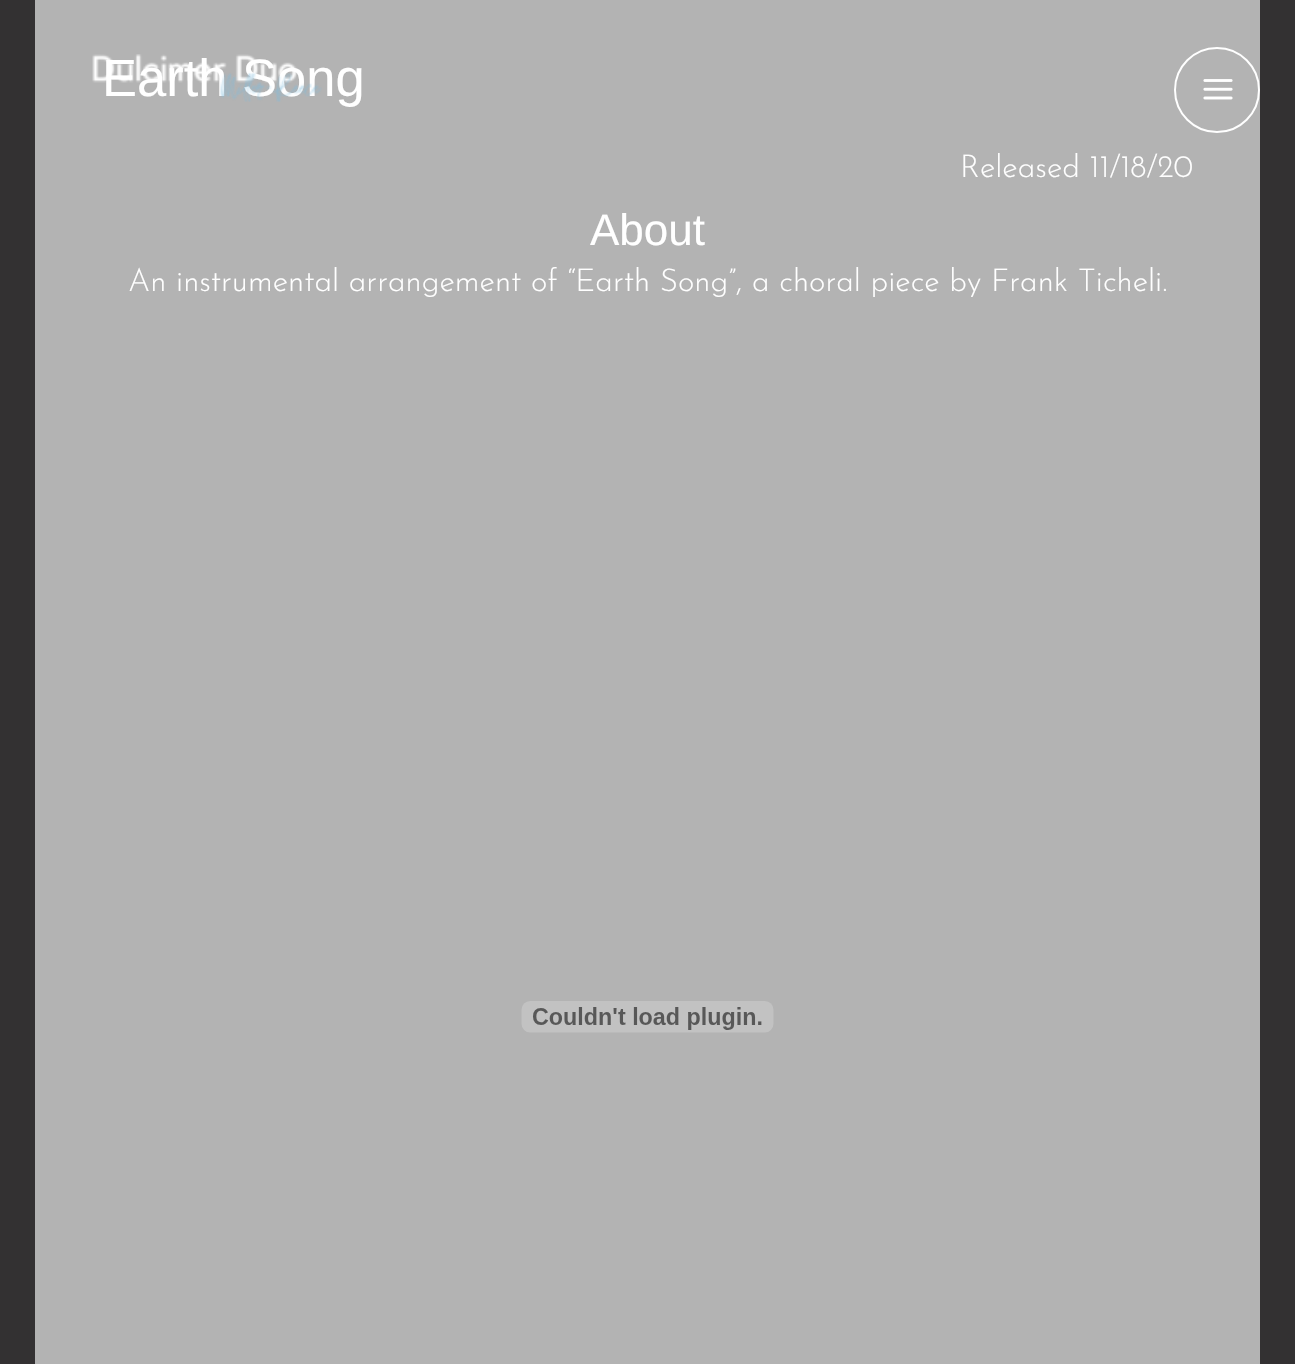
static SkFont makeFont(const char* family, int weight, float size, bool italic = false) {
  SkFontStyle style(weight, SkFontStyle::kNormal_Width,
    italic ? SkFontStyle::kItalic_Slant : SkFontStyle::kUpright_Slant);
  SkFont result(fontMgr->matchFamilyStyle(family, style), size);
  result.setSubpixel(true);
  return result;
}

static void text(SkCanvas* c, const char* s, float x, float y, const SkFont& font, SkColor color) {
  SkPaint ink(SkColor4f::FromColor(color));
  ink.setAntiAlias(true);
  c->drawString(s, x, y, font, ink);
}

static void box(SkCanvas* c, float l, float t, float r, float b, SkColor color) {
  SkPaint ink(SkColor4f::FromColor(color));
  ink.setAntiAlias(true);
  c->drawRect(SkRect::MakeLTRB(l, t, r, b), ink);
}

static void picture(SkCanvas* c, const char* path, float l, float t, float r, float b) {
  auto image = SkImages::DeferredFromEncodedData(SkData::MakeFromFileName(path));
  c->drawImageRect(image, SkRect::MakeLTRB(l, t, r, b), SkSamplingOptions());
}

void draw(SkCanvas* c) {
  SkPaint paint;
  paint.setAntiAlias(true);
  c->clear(0xff333132);
  box(c, 35, 0, 1260, 1364, 0xffb3b3b3);
  SkFont face1 = makeFont("Liberation Sans", 400, 52.5f);
  text(c, "Earth Song", 102, 96, face1, 0xffffffff);
  picture(c, "img_01.png", 92, 54, 322, 102);
  paint.setStyle(SkPaint::kStroke_Style);
  paint.setStrokeWidth(2);
  paint.setColor(0xffffffff);
  c->drawCircle(1217, 90, 42, paint);
  picture(c, "img_02.png", 1203, 79, 1233, 100);
  SkFont face2 = makeFont("Josefin Sans", 100, 31.5f);
  text(c, "Released 11/18/20", 960, 177, face2, 0xffffffff);
  SkFont face3 = makeFont("Liberation Sans", 400, 44);
  text(c, "About", 590, 245, face3, 0xffffffff);
  text(c, "An instrumental arrangement of “Earth Song”, a choral piece by Frank Ticheli.", 128, 291, face2, 0xffffffff);
  picture(c, "img_03.png", 521, 1001, 774, 1033);
}
